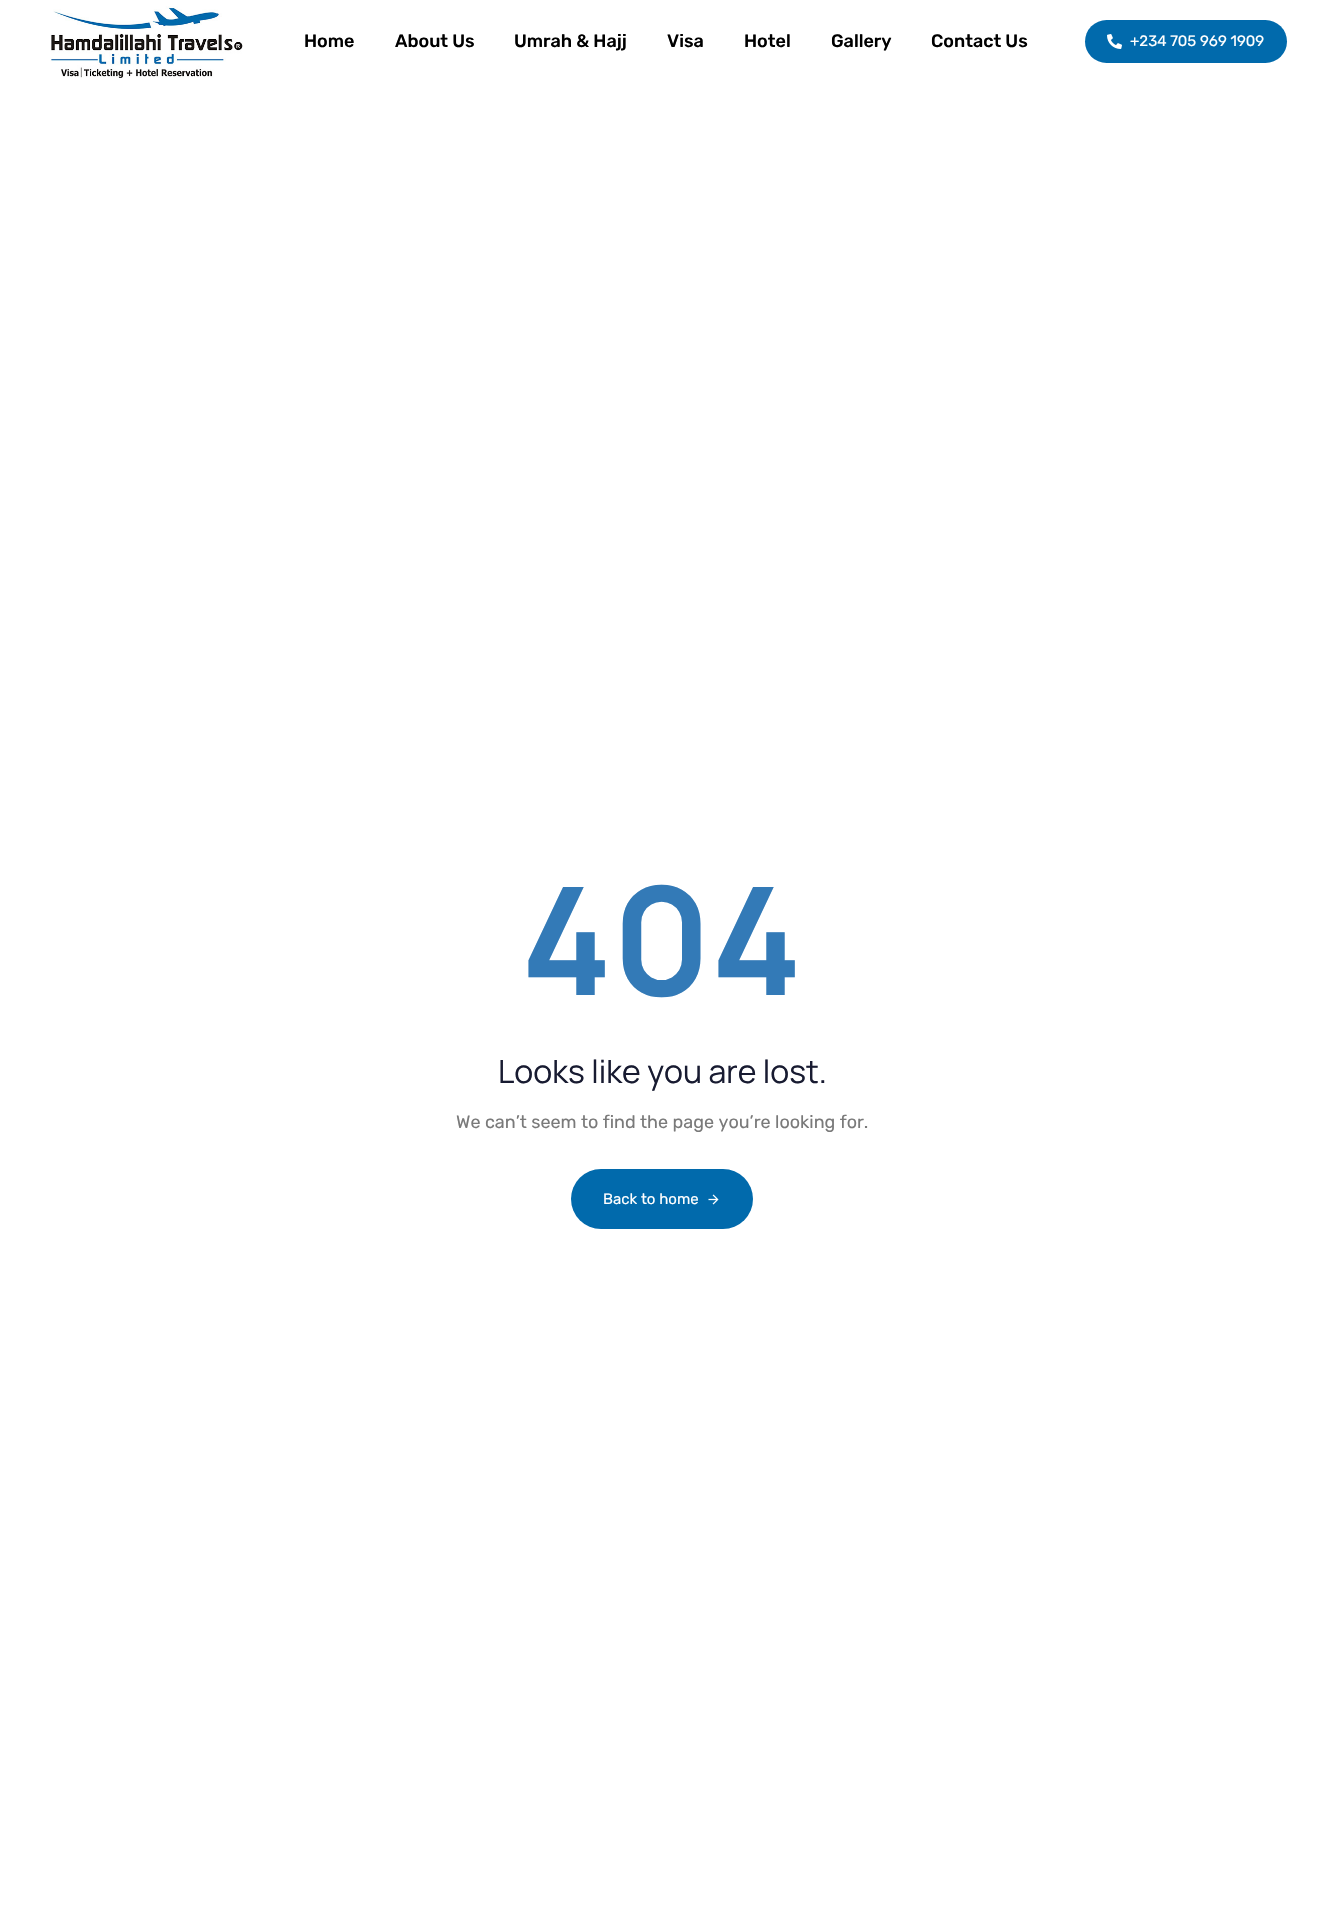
static SkFont makeFont(const char* family, int weight, float size, bool italic = false) {
  SkFontStyle style(weight, SkFontStyle::kNormal_Width,
    italic ? SkFontStyle::kItalic_Slant : SkFontStyle::kUpright_Slant);
  SkFont result(fontMgr->matchFamilyStyle(family, style), size);
  result.setSubpixel(true);
  return result;
}

static void text(SkCanvas* c, const char* s, float x, float y, const SkFont& font, SkColor color) {
  SkPaint ink(SkColor4f::FromColor(color));
  ink.setAntiAlias(true);
  c->drawString(s, x, y, font, ink);
}

static void roundBox(SkCanvas* c, float l, float t, float r, float b, float radius, SkColor color) {
  SkPaint ink(SkColor4f::FromColor(color));
  ink.setAntiAlias(true);
  c->drawRoundRect(SkRect::MakeLTRB(l, t, r, b), radius, radius, ink);
}

static void picture(SkCanvas* c, const char* path, float l, float t, float r, float b) {
  auto image = SkImages::DeferredFromEncodedData(SkData::MakeFromFileName(path));
  c->drawImageRect(image, SkRect::MakeLTRB(l, t, r, b), SkSamplingOptions());
}

void draw(SkCanvas* c) {
  SkPaint paint;
  paint.setAntiAlias(true);
  c->clear(0xffffffff);
  picture(c, "img_01.png", 50, 6, 243, 78);
  SkFont face1 = makeFont("Rubik", 500, 18);
  text(c, "Home", 304, 47, face1, 0xff000000);
  text(c, "About Us", 395, 47, face1, 0xff000000);
  text(c, "Umrah & Hajj", 514, 47, face1, 0xff000000);
  text(c, "Visa", 667, 47, face1, 0xff000000);
  text(c, "Hotel", 744, 47, face1, 0xff000000);
  text(c, "Gallery", 831, 47, face1, 0xff000000);
  text(c, "Contact Us", 931, 47, face1, 0xff000000);
  roundBox(c, 1085, 20, 1287, 63, 21.5f, 0xff016aac);
  picture(c, "img_02.png", 1107, 34, 1122, 49);
  SkFont face2 = makeFont("Rubik", 400, 15);
  text(c, "+234 705 969 1909", 1130, 46, face2, 0xffffffff);
  SkFont face3 = makeFont("Manrope", 700, 150);
  text(c, "404", 521, 995, face3, 0xff337ab7);
  SkFont face4 = makeFont("Manrope", 400, 32);
  text(c, "Looks like you are lost.", 498, 1083, face4, 0xff181b31);
  SkFont face5 = makeFont("Rubik", 400, 18);
  text(c, "We can’t seem to find the page you’re looking for.", 456, 1128, face5, 0xff7a7a7a);
  roundBox(c, 571, 1169, 753, 1229, 30, 0xff016aac);
  text(c, "Back to home", 603, 1204, face2, 0xffffffff);
  picture(c, "img_03.png", 708, 1194, 719, 1205);
}
